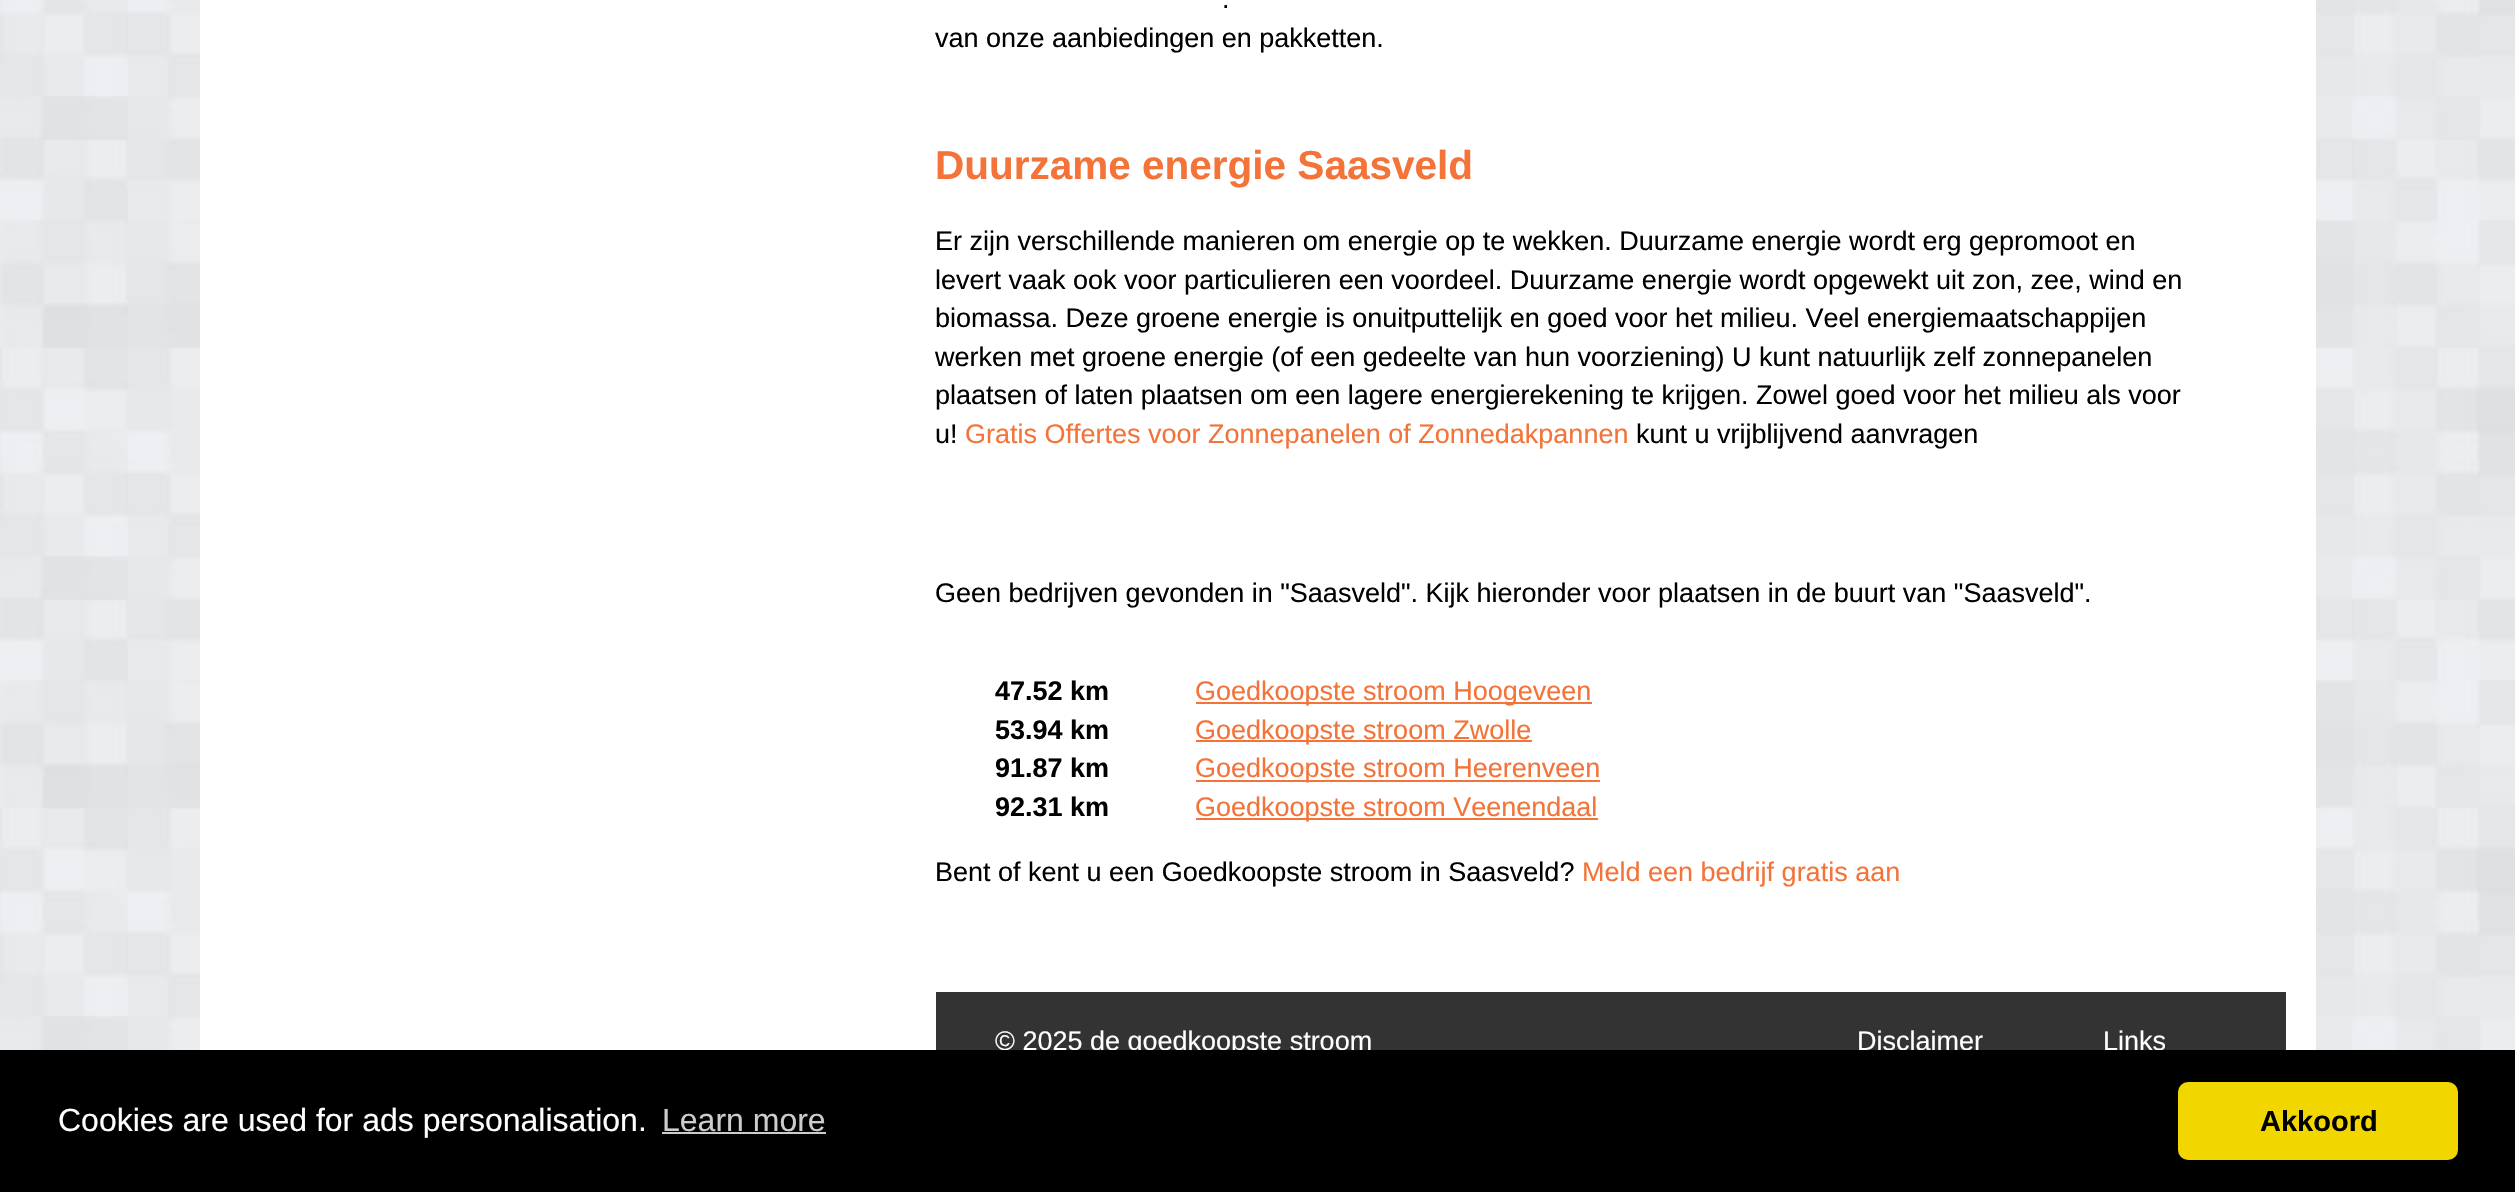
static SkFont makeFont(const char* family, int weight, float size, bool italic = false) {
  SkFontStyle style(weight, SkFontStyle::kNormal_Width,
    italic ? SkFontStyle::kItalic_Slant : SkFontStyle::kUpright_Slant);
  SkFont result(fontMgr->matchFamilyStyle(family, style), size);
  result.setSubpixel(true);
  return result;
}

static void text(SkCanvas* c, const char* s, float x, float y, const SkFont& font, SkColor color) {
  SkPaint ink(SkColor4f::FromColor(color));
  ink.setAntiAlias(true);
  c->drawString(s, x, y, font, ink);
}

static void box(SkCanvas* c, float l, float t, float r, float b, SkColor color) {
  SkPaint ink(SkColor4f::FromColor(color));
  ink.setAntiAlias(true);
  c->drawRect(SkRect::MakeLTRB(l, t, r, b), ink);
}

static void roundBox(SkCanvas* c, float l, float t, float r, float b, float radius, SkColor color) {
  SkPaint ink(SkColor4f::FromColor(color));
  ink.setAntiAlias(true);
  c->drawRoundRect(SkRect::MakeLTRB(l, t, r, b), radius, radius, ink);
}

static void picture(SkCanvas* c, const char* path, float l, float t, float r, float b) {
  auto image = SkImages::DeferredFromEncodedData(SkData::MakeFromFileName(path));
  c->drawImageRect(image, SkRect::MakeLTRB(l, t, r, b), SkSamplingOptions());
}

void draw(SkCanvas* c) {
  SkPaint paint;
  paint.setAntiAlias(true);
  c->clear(0xffffffff);
  picture(c, "img_01.png", 0, 0, 2515, 1050);
  box(c, 200, 0, 2316, 1050, 0xffffffff);
  SkFont face1 = makeFont("Liberation Sans", 400, 27);
  text(c, ".", 1222, 8, face1, 0xff000000);
  text(c, "van onze aanbiedingen en pakketten.", 935, 47, face1, 0xff000000);
  SkFont face2 = makeFont("Liberation Sans", 700, 40.5f);
  text(c, "Duurzame energie Saasveld", 935, 179, face2, 0xfff37338);
  text(c, "Er zijn verschillende manieren om energie op te wekken. Duurzame energie wordt erg gepromoot en", 935, 250, face1, 0xff000000);
  text(c, "levert vaak ook voor particulieren een voordeel. Duurzame energie wordt opgewekt uit zon, zee, wind en", 935, 289, face1, 0xff000000);
  text(c, "biomassa. Deze groene energie is onuitputtelijk en goed voor het milieu. Veel energiemaatschappijen", 935, 327, face1, 0xff000000);
  text(c, "werken met groene energie (of een gedeelte van hun voorziening) U kunt natuurlijk zelf zonnepanelen", 935, 366, face1, 0xff000000);
  text(c, "plaatsen of laten plaatsen om een lagere energierekening te krijgen. Zowel goed voor het milieu als voor", 935, 404, face1, 0xff000000);
  text(c, "u!", 935, 443, face1, 0xff000000);
  text(c, "Gratis Offertes voor Zonnepanelen of Zonnedakpannen", 965, 443, face1, 0xfff37338);
  text(c, "kunt u vrijblijvend aanvragen", 1636, 443, face1, 0xff000000);
  text(c, "Geen bedrijven gevonden in \"Saasveld\". Kijk hieronder voor plaatsen in de buurt van \"Saasveld\".", 935, 602, face1, 0xff000000);
  SkFont face3 = makeFont("Liberation Sans", 700, 27);
  text(c, "47.52 km", 995, 700, face3, 0xff000000);
  box(c, 1196, 702, 1592, 704, 0xfff37338);
  text(c, "Goedkoopste stroom Hoogeveen", 1195, 700, face1, 0xfff37338);
  text(c, "53.94 km", 995, 739, face3, 0xff000000);
  box(c, 1196, 740, 1532, 742, 0xfff37338);
  text(c, "Goedkoopste stroom Zwolle", 1195, 739, face1, 0xfff37338);
  text(c, "91.87 km", 995, 777, face3, 0xff000000);
  box(c, 1196, 780, 1600, 782, 0xfff37338);
  text(c, "Goedkoopste stroom Heerenveen", 1195, 777, face1, 0xfff37338);
  text(c, "92.31 km", 995, 816, face3, 0xff000000);
  box(c, 1196, 818, 1598, 820, 0xfff37338);
  text(c, "Goedkoopste stroom Veenendaal", 1195, 816, face1, 0xfff37338);
  text(c, "Bent of kent u een Goedkoopste stroom in Saasveld?", 935, 881, face1, 0xff000000);
  text(c, "Meld een bedrijf gratis aan", 1582, 881, face1, 0xfff37338);
  box(c, 936, 992, 2286, 1050, 0xff333333);
  text(c, "© 2025 de goedkoopste stroom", 995, 1050, face1, 0xffffffff);
  text(c, "Disclaimer", 1857, 1050, face1, 0xffffffff);
  text(c, "Links", 2103, 1050, face1, 0xffffffff);
  box(c, 0, 1050, 2515, 1192, 0xff000000);
  SkFont face4 = makeFont("Liberation Sans", 400, 32);
  text(c, "Cookies are used for ads personalisation.", 58, 1131, face4, 0xffffffff);
  text(c, "Learn more", 662, 1131, face4, 0xffcccccc);
  box(c, 662, 1132, 826, 1134, 0xffcccccc);
  roundBox(c, 2178, 1082, 2458, 1160, 10, 0xfff1d600);
  SkFont face5 = makeFont("Liberation Sans", 700, 29);
  text(c, "Akkoord", 2260, 1131, face5, 0xff000000);
}
